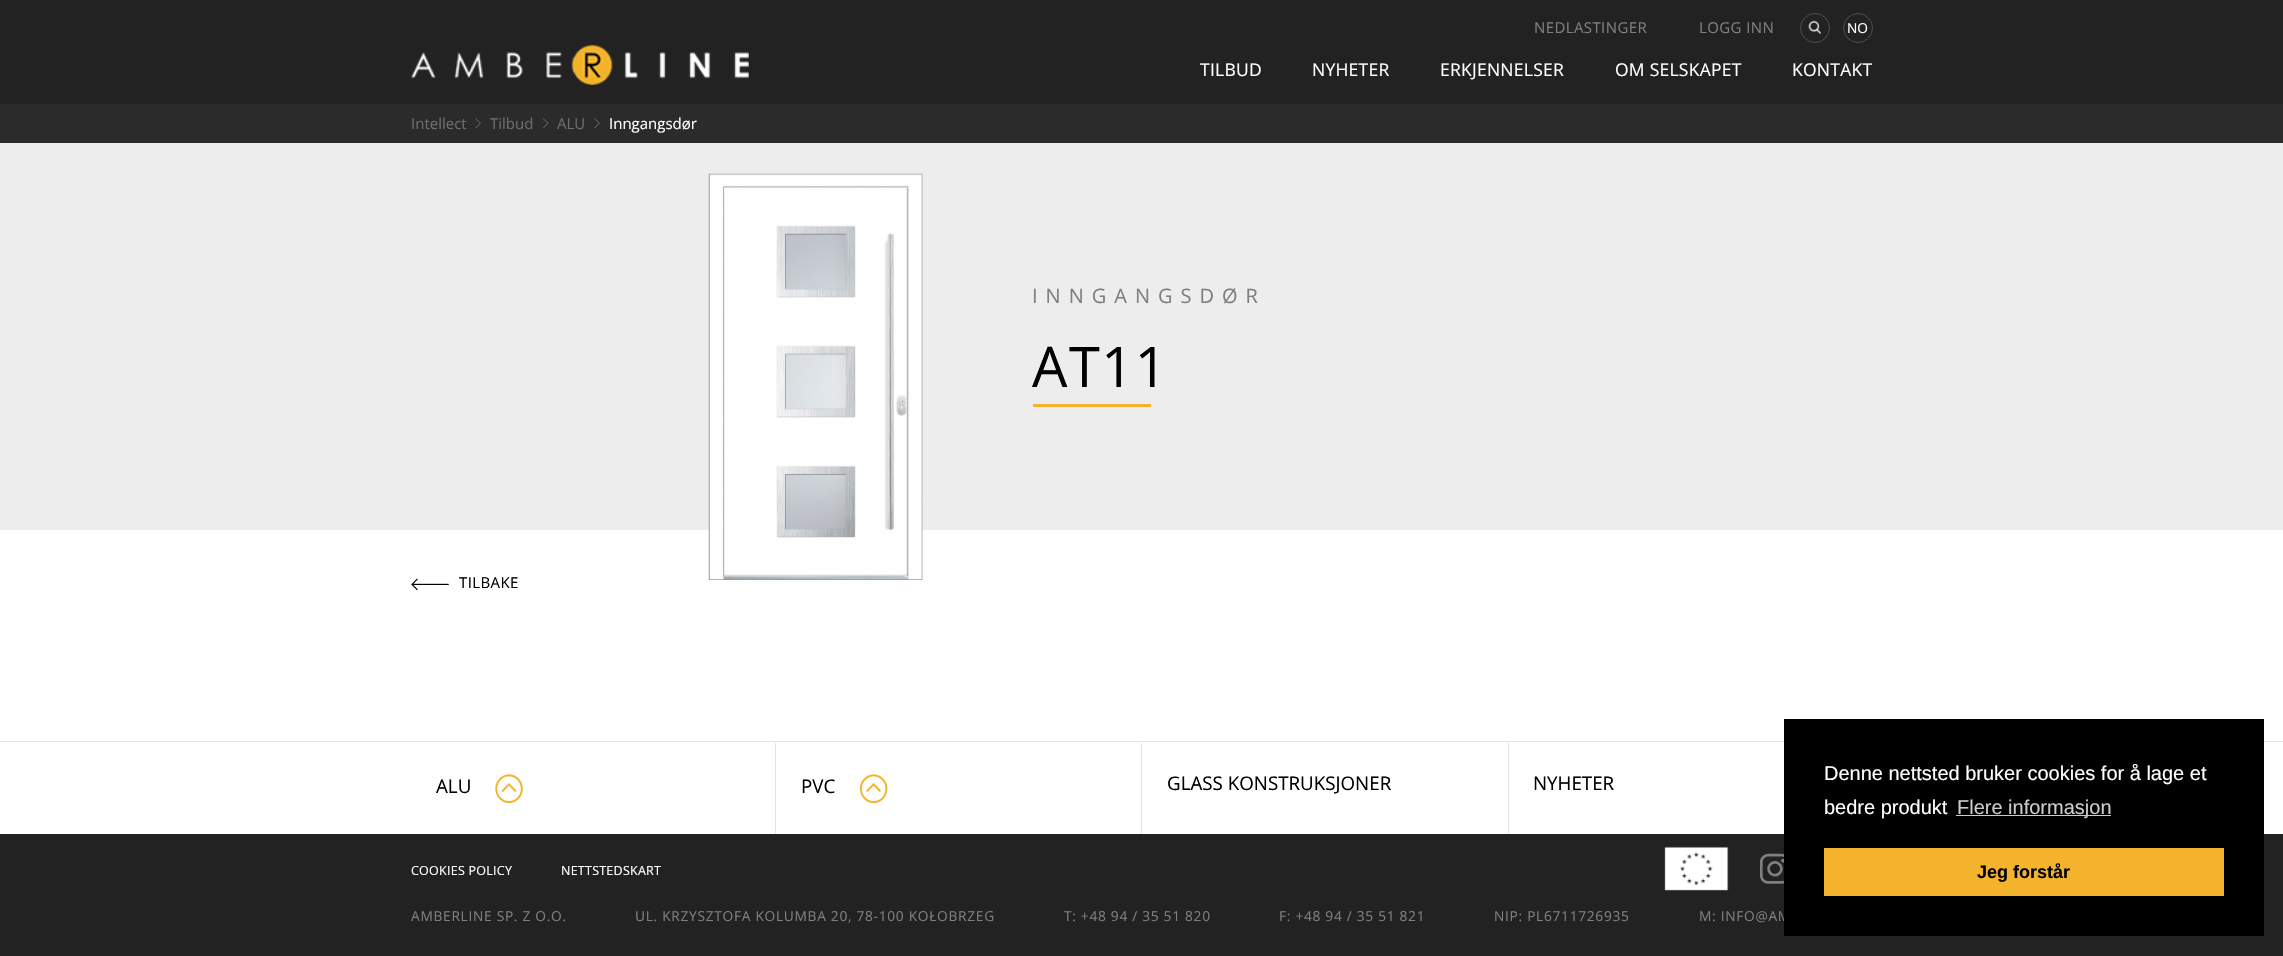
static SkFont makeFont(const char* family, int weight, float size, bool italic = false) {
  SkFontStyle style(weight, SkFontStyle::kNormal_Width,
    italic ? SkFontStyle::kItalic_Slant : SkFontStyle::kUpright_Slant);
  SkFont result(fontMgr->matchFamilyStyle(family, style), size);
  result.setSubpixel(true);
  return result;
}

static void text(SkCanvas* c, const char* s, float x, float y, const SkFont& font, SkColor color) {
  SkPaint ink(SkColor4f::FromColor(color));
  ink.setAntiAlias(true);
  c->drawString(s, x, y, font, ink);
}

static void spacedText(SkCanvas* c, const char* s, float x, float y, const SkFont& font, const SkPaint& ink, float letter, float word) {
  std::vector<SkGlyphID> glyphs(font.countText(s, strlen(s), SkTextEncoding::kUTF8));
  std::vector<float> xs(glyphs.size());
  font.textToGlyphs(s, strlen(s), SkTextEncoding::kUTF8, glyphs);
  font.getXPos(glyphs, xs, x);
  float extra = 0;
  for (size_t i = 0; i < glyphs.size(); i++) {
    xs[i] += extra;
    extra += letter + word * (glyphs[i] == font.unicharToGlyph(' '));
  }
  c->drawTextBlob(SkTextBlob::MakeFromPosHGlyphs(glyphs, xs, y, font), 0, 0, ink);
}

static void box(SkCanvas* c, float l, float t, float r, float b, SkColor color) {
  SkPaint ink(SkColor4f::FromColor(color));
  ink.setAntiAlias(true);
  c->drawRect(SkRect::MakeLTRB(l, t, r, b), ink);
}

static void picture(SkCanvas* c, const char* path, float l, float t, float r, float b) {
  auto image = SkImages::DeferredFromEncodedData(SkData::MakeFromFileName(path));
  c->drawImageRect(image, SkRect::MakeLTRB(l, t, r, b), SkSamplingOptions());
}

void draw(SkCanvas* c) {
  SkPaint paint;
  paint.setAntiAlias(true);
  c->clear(0xffffffff);
  box(c, 0, 0, 2283, 104, 0xff222222);
  picture(c, "img_01.png", 411, 44, 749, 85);
  SkFont face1 = makeFont("Open Sans", 400, 15);
  paint.setColor(0xff7f7f7f);
  spacedText(c, "NEDLASTINGER", 1534, 33, face1, paint, 0.4f, 0);
  spacedText(c, "LOGG INN", 1699, 33, face1, paint, 0.4f, 0);
  paint.setStyle(SkPaint::kStroke_Style);
  paint.setStrokeWidth(1);
  paint.setColor(0xff4d4d4d);
  c->drawCircle(1815, 28, 14.5f, paint);
  picture(c, "img_02.png", 1808, 20, 1821, 34);
  c->drawCircle(1858, 28, 14.5f, paint);
  SkFont face2 = makeFont("Open Sans", 400, 13.75f);
  text(c, "NO", 1847, 33, face2, 0xffffffff);
  SkFont face3 = makeFont("Open Sans", 400, 17.5f);
  paint.setStyle(SkPaint::kFill_Style);
  paint.setColor(0xffffffff);
  spacedText(c, "TILBUD", 1200, 76, face3, paint, 0.25f, 0);
  spacedText(c, "NYHETER", 1312, 76, face3, paint, 0.25f, 0);
  spacedText(c, "ERKJENNELSER", 1440, 76, face3, paint, 0.25f, 0);
  spacedText(c, "OM SELSKAPET", 1615, 76, face3, paint, 0.25f, 0);
  spacedText(c, "KONTAKT", 1792, 76, face3, paint, 0.25f, 0);
  box(c, 0, 104, 2283, 143, 0xff2b2b2b);
  text(c, "Intellect", 411, 129, face1, 0xff6d6d6d);
  picture(c, "img_03.png", 475, 118, 481, 129);
  text(c, "Tilbud", 490, 129, face1, 0xff6d6d6d);
  picture(c, "img_04.png", 543, 118, 549, 129);
  text(c, "ALU", 557, 129, face1, 0xff6d6d6d);
  picture(c, "img_05.png", 594, 118, 600, 129);
  text(c, "Inngangsdør", 609, 129, face1, 0xffffffff);
  box(c, 0, 143, 2283, 530, 0xffededed);
  picture(c, "img_06.png", 708, 173, 923, 580);
  SkFont face4 = makeFont("Open Sans", 400, 20);
  paint.setColor(0xff7f7f7f);
  spacedText(c, "INNGANGSDØR", 1032, 303, face4, paint, 8, 0);
  SkFont face5 = makeFont("Open Sans", 400, 56);
  paint.setColor(0xff000000);
  spacedText(c, "AT11", 1032, 387, face5, paint, 1.5f, 0);
  box(c, 1033, 404, 1151, 407, 0xfff3b32c);
  picture(c, "img_07.png", 411, 578, 449, 591);
  spacedText(c, "TILBAKE", 459, 588, face1, paint, 0.4f, 0);
  box(c, 0, 741, 2283, 742, 0xffe5e5e5);
  box(c, 775, 743, 776, 834, 0xffe5e5e5);
  SkFont face6 = makeFont("Open Sans", 400, 18.75f);
  text(c, "ALU", 436, 793, face6, 0xff000000);
  picture(c, "img_08.png", 495, 774, 523, 804);
  box(c, 1141, 743, 1142, 834, 0xffe5e5e5);
  text(c, "PVC", 801, 793, face6, 0xff000000);
  picture(c, "img_09.png", 859, 774, 888, 804);
  box(c, 1508, 743, 1509, 834, 0xffe5e5e5);
  text(c, "GLASS KONSTRUKSJONER", 1167, 790, face6, 0xff000000);
  text(c, "NYHETER", 1533, 790, face6, 0xff000000);
  box(c, 0, 834, 2283, 956, 0xff222222);
  SkFont face7 = makeFont("Open Sans", 400, 12.5f);
  paint.setColor(0xffffffff);
  spacedText(c, "COOKIES POLICY", 411, 875, face7, paint, 0.25f, 0);
  spacedText(c, "NETTSTEDSKART", 561, 875, face7, paint, 0.25f, 0);
  picture(c, "img_10.png", 1664, 846, 1729, 891);
  picture(c, "img_11.png", 1760, 853, 1784, 884);
  paint.setColor(0xff7f7f7f);
  spacedText(c, "AMBERLINE SP. Z O.O.", 411, 921, face2, paint, 0.7f, 0);
  spacedText(c, "UL. KRZYSZTOFA KOLUMBA 20, 78-100 KOŁOBRZEG", 635, 921, face2, paint, 0.7f, 0);
  spacedText(c, "T: +48 94 / 35 51 820", 1064, 921, face2, paint, 0.7f, 0);
  spacedText(c, "F: +48 94 / 35 51 821", 1279, 921, face2, paint, 0.7f, 0);
  spacedText(c, "NIP: PL6711726935", 1494, 921, face2, paint, 0.7f, 0);
  spacedText(c, "M: INFO@AM", 1699, 921, face2, paint, 0.7f, 0);
  box(c, 1784, 719, 2264, 936, 0xff000000);
  SkFont face8 = makeFont("Liberation Sans", 400, 20);
  text(c, "Denne nettsted bruker cookies for å lage et", 1824, 780, face8, 0xffffffff);
  text(c, "bedre produkt", 1824, 814, face8, 0xffffffff);
  box(c, 1956, 815, 2111, 816, 0xffcccccc);
  text(c, "Flere informasjon", 1957, 814, face8, 0xffcccccc);
  box(c, 1824, 848, 2224, 896, 0xfff3b32c);
  SkFont face9 = makeFont("Liberation Sans", 700, 18);
  text(c, "Jeg forstår", 1977, 878, face9, 0xff000000);
}
